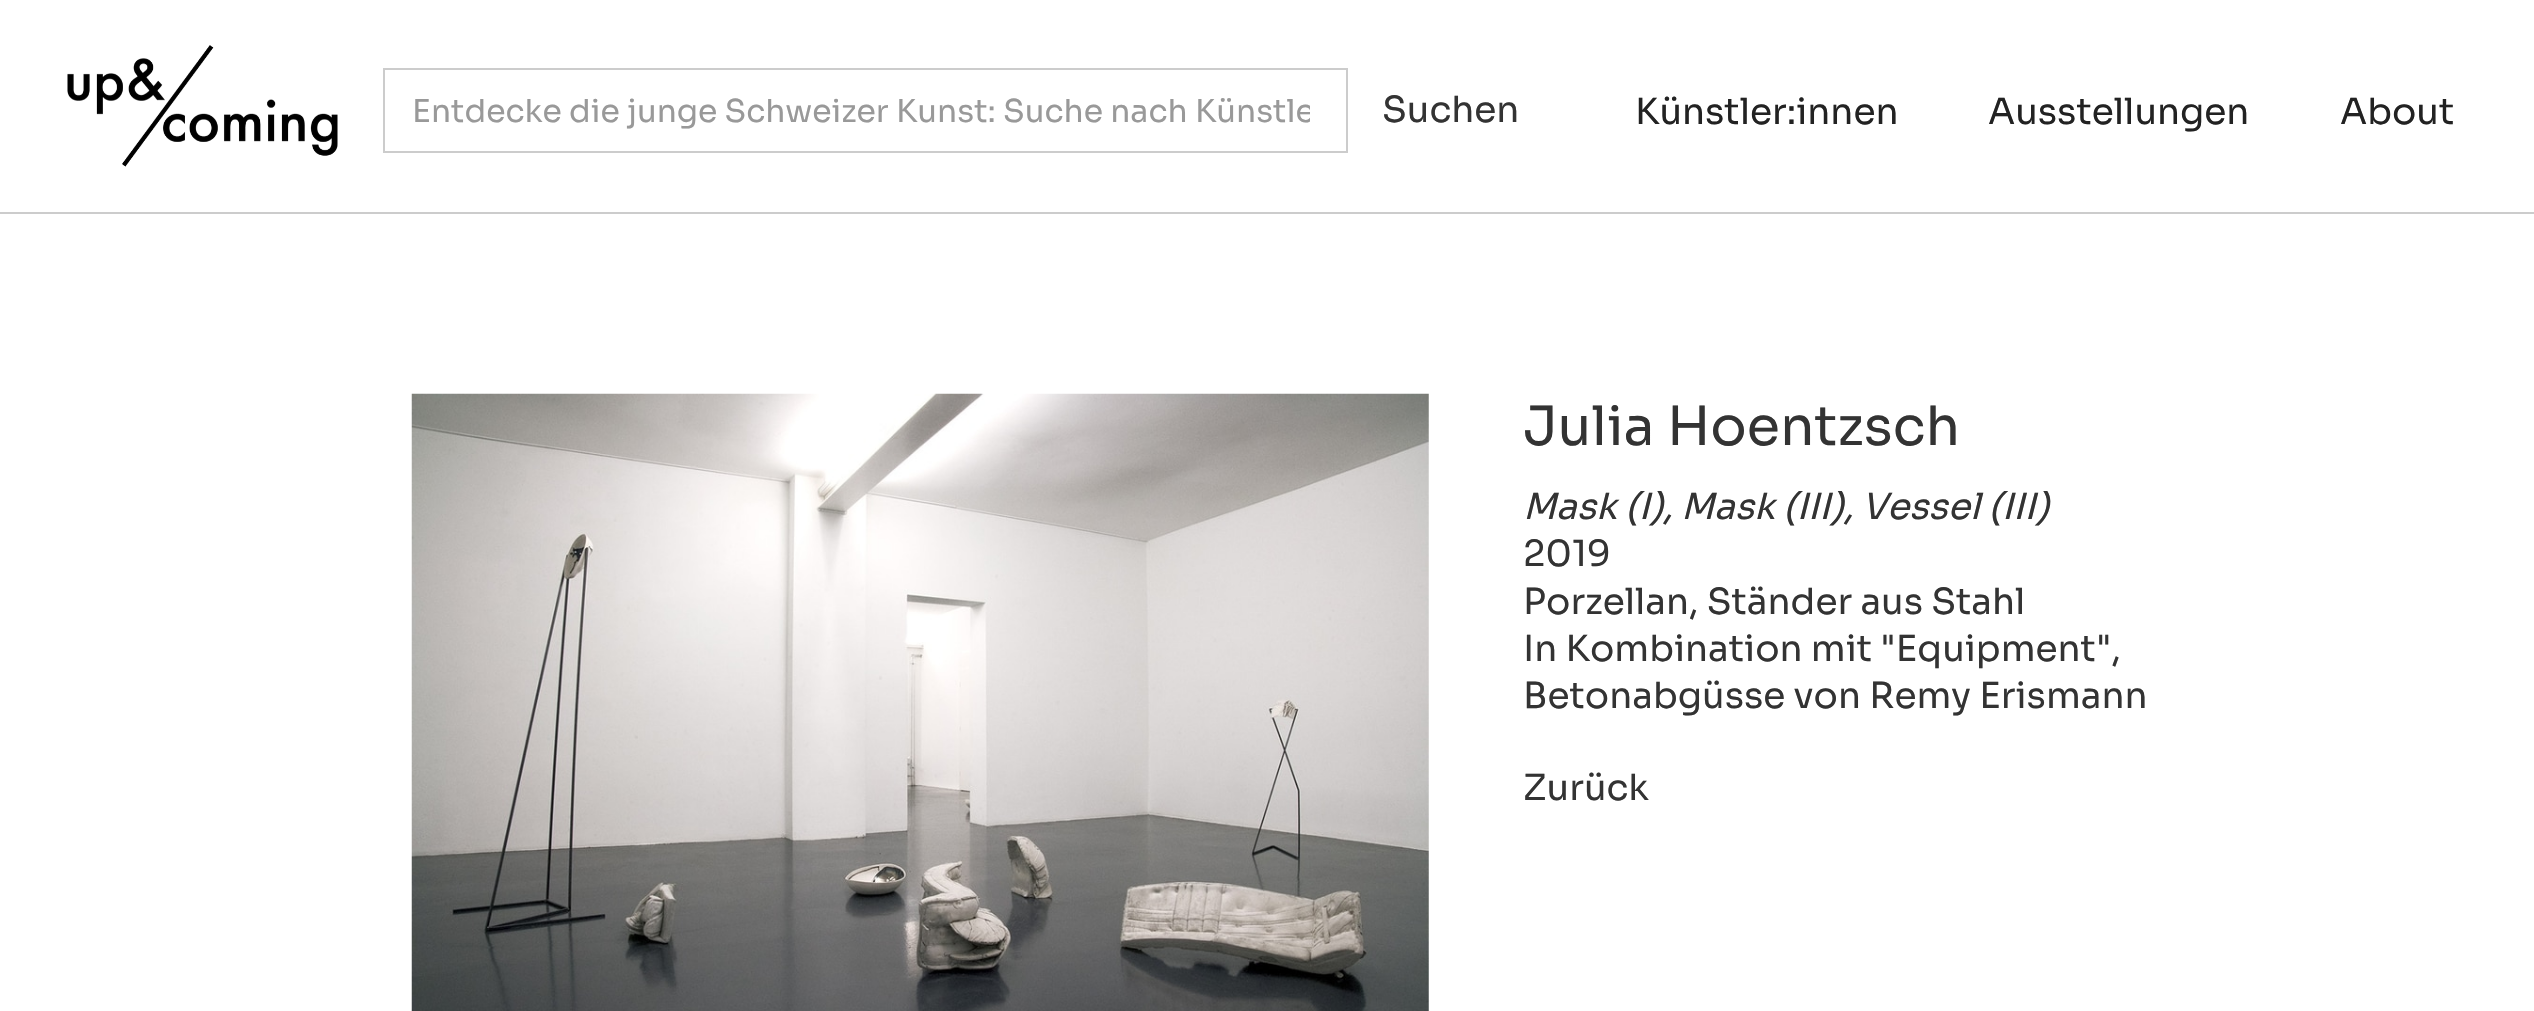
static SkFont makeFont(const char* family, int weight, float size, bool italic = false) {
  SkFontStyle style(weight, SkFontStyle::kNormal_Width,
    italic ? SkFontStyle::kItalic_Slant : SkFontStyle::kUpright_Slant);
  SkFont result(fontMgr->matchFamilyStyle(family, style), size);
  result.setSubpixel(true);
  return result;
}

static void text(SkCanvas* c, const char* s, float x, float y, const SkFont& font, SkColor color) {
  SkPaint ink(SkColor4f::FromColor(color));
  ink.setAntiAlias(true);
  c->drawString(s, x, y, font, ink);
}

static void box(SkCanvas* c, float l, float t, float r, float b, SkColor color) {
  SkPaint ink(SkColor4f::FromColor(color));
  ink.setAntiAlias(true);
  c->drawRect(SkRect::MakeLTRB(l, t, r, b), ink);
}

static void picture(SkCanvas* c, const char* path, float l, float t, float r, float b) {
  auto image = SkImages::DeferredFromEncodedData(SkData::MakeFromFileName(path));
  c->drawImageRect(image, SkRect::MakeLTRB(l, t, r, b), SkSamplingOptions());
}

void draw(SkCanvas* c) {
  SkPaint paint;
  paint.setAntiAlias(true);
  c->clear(0xffffffff);
  picture(c, "img_01.png", 67, 45, 338, 167);
  paint.setStyle(SkPaint::kStroke_Style);
  paint.setStrokeWidth(2);
  paint.setColor(0xffcccccc);
  c->drawRect(SkRect::MakeLTRB(384, 69, 1347, 152), paint);
  c->save();
  c->clipRect(SkRect::MakeLTRB(412, 90, 1310, 131));
  SkFont face1 = makeFont("Sora", 400, 31.5f);
  text(c, "Entdecke die junge Schweizer Kunst: Suche nach Künstle", 412, 122, face1, 0xff999999);
  c->restore();
  SkFont face2 = makeFont("Sora", 400, 36);
  text(c, "Suchen", 1382, 122, face2, 0xff333333);
  text(c, "Künstler:innen", 1635, 124, face2, 0xff222222);
  text(c, "Ausstellungen", 1988, 124, face2, 0xff222222);
  text(c, "About", 2340, 124, face2, 0xff222222);
  box(c, 0, 212, 2534, 214, 0xffcccccc);
  picture(c, "img_02.png", 411, 393, 1429, 1011);
  SkFont face3 = makeFont("Sora", 400, 54);
  text(c, "Julia Hoentzsch", 1523, 445, face3, 0xff333333);
  SkFont face4 = makeFont("Sora", 400, 36, true);
  text(c, "Mask (I), Mask (III), Vessel (III)", 1523, 519, face4, 0xff333333);
  text(c, "2019", 1523, 566, face2, 0xff333333);
  text(c, "Porzellan, Ständer aus Stahl", 1523, 614, face2, 0xff333333);
  text(c, "In Kombination mit \"Equipment\",", 1523, 661, face2, 0xff333333);
  text(c, "Betonabgüsse von Remy Erismann", 1523, 708, face2, 0xff333333);
  text(c, "Zurück", 1523, 800, face2, 0xff333333);
}
